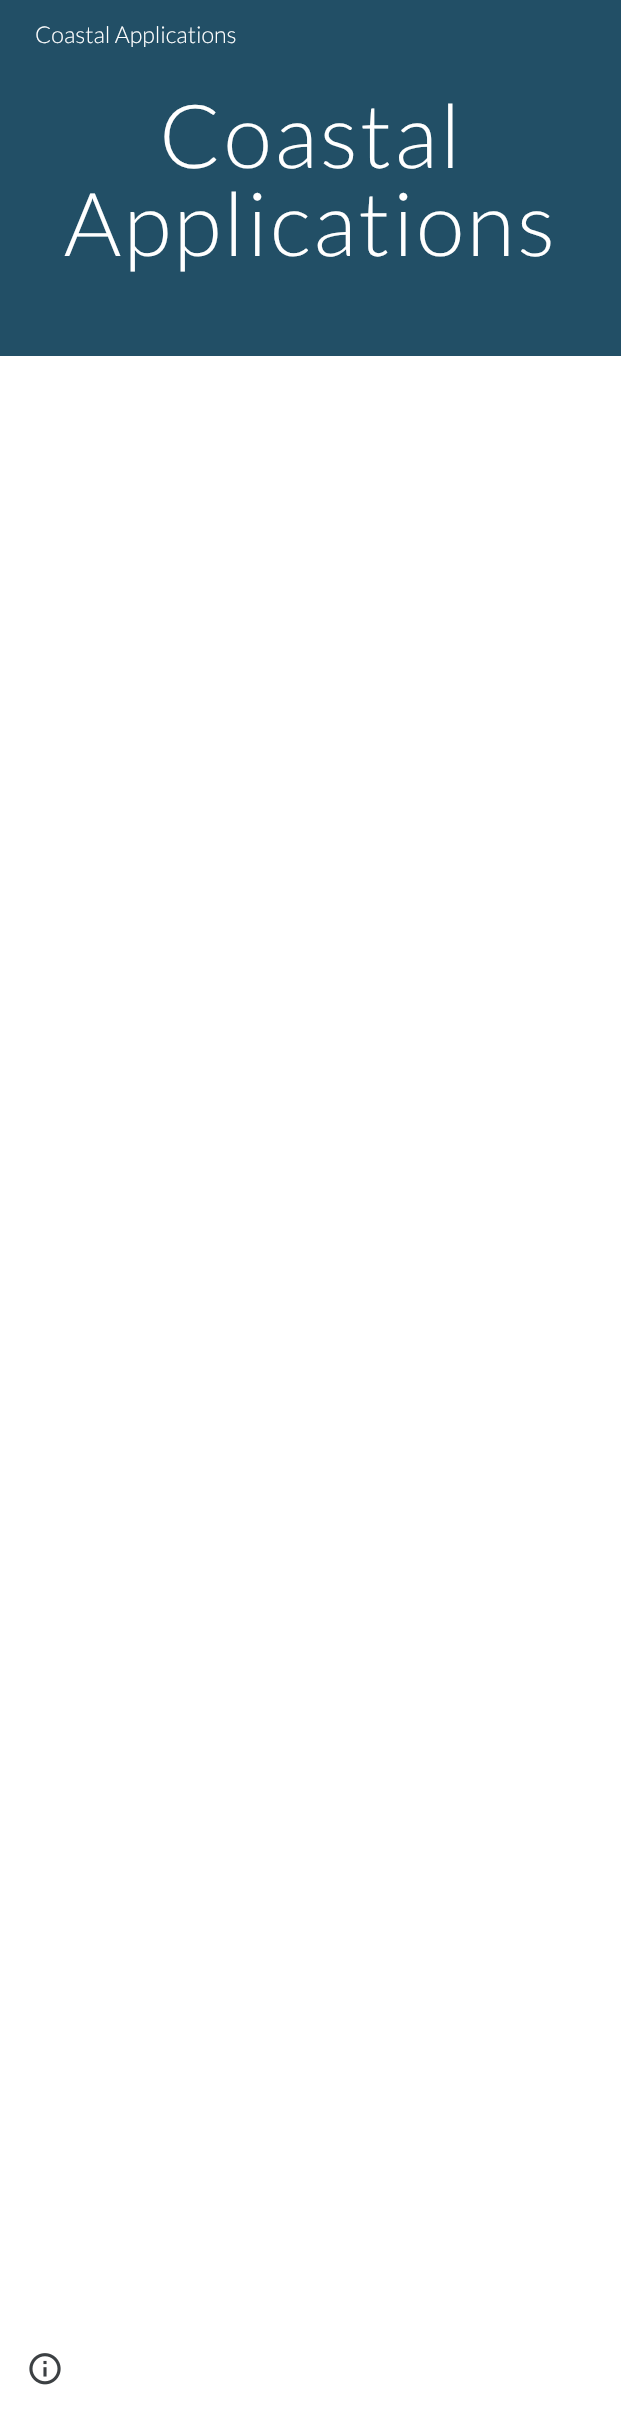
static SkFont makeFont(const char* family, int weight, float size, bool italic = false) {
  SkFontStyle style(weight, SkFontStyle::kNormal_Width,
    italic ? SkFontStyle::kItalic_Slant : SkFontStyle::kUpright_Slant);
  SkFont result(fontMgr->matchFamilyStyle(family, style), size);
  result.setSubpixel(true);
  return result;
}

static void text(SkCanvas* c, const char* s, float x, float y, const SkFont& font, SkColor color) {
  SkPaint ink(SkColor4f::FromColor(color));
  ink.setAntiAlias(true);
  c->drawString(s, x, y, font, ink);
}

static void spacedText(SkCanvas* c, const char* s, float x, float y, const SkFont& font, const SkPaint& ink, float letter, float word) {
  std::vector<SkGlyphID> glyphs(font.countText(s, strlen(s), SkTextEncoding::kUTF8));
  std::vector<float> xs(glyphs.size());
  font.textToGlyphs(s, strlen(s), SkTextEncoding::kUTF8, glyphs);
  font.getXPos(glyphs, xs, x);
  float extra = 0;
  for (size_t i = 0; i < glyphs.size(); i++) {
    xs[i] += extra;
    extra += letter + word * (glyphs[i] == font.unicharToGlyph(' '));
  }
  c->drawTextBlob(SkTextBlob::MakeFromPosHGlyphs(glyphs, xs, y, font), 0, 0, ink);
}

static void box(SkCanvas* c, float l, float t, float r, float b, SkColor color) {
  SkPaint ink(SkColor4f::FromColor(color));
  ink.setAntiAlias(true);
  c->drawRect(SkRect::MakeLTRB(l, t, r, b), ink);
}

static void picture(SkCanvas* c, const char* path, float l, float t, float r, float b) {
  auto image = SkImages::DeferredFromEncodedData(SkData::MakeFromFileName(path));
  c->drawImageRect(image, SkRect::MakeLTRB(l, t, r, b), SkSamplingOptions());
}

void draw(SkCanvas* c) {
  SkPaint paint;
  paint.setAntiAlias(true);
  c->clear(0xffffffff);
  box(c, 0, 0, 621, 356, 0xff224f66);
  SkFont face1 = makeFont("Lato", 300, 23.25f);
  text(c, "Coastal Applications", 35, 43, face1, 0xffffffff);
  SkFont face2 = makeFont("Lato", 300, 88.5f);
  paint.setColor(0xffffffff);
  spacedText(c, "Coastal", 159, 168, face2, paint, 2.5f, 0);
  spacedText(c, "Applications", 64, 256, face2, paint, 2.5f, 0);
  picture(c, "img_01.png", 29, 2353, 61, 2385);
}
